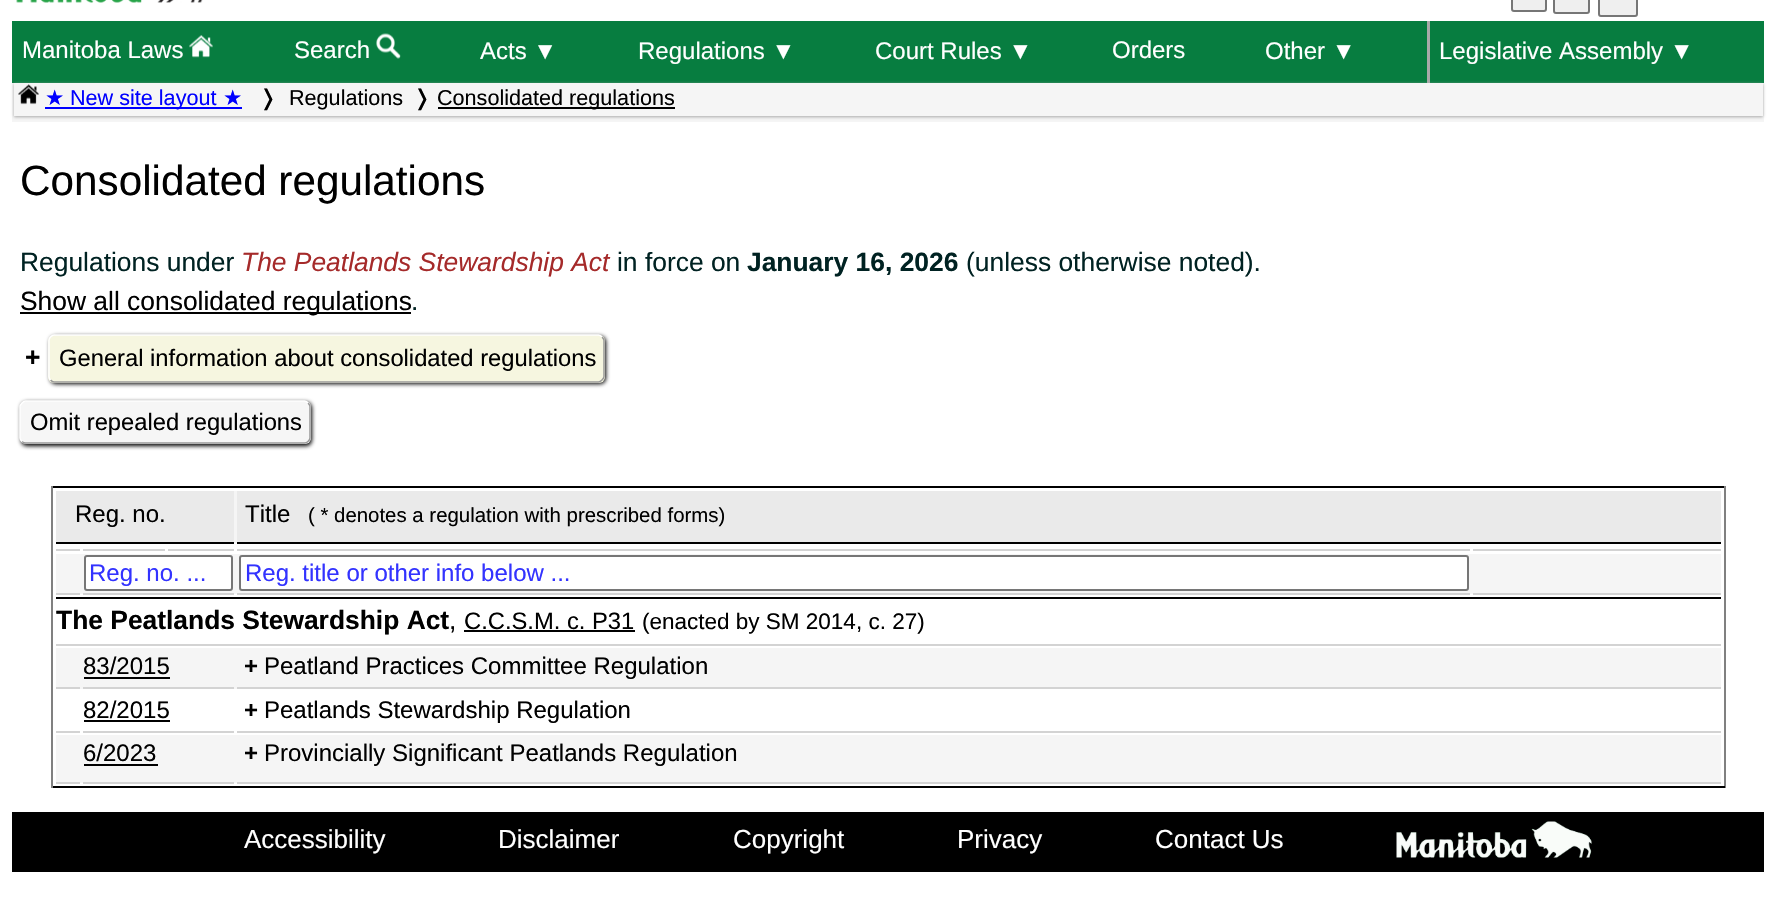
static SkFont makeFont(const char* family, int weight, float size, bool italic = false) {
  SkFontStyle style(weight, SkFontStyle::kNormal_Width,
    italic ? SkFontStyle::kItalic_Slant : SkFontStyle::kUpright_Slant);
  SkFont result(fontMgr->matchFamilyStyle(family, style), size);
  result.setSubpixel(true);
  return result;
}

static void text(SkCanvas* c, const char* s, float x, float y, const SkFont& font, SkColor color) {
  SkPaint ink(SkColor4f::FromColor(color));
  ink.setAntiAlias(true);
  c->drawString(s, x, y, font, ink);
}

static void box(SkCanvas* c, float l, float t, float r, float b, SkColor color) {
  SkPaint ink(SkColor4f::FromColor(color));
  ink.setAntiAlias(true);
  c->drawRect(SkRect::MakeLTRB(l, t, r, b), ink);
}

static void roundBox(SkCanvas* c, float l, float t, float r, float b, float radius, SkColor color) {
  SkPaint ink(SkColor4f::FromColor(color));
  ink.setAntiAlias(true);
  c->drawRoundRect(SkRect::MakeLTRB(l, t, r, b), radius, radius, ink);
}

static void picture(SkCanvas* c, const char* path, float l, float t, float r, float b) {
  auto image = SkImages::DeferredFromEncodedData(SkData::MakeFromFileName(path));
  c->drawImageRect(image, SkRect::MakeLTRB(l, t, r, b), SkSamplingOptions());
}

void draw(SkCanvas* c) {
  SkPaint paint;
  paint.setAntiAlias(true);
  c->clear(0xffffffff);
  picture(c, "img_01.png", 16, 0, 203, 3);
  paint.setColor(0xffefefef);
  c->drawRoundRect(SkRect::MakeLTRB(1512, -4, 1546, 11), 2, 2, paint);
  paint.setStyle(SkPaint::kStroke_Style);
  paint.setStrokeWidth(2);
  paint.setColor(0xff767676);
  c->drawRoundRect(SkRect::MakeLTRB(1512, -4, 1546, 11), 2, 2, paint);
  paint.setStyle(SkPaint::kFill_Style);
  paint.setColor(0xffefefef);
  c->drawRoundRect(SkRect::MakeLTRB(1554, -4, 1589, 13), 2, 2, paint);
  paint.setStyle(SkPaint::kStroke_Style);
  paint.setColor(0xff767676);
  c->drawRoundRect(SkRect::MakeLTRB(1554, -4, 1589, 13), 2, 2, paint);
  paint.setStyle(SkPaint::kFill_Style);
  paint.setColor(0xffefefef);
  c->drawRoundRect(SkRect::MakeLTRB(1599, -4, 1637, 16), 2, 2, paint);
  paint.setStyle(SkPaint::kStroke_Style);
  paint.setColor(0xff767676);
  c->drawRoundRect(SkRect::MakeLTRB(1599, -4, 1637, 16), 2, 2, paint);
  box(c, 12, 83, 1764, 122, 0xfff5f5f5);
  box(c, 12, 21, 1764, 83, 0xff077d40);
  SkFont face1 = makeFont("Liberation Sans", 400, 24);
  text(c, "Manitoba Laws", 22, 58, face1, 0xffffffff);
  picture(c, "img_02.png", 189, 35, 213, 58);
  text(c, "Search", 294, 58, face1, 0xffffffff);
  picture(c, "img_03.png", 376, 33, 401, 59);
  text(c, "Acts ▼", 480, 59, face1, 0xffffffff);
  text(c, "Regulations ▼", 638, 59, face1, 0xffffffff);
  text(c, "Court Rules ▼", 875, 59, face1, 0xffffffff);
  text(c, "Orders", 1112, 58, face1, 0xffffffff);
  text(c, "Other ▼", 1265, 59, face1, 0xffffffff);
  box(c, 1427, 21, 1430, 83, 0xffa9a9a9);
  text(c, "Legislative Assembly ▼", 1439, 59, face1, 0xffffffff);
  paint.setStyle(SkPaint::kFill_Style);
  paint.setColor(0xffa9a9a9);
  paint.setMaskFilter(SkMaskFilter::MakeBlur(kNormal_SkBlurStyle, 1.5f));
  c->drawRect(SkRect::MakeLTRB(14, 84, 1763, 117), paint);
  paint.setMaskFilter(nullptr);
  box(c, 14, 83, 1763, 116, 0xfff5f5f5);
  picture(c, "img_04.png", 18, 84, 39, 105);
  SkFont face2 = makeFont("DejaVu Sans", 400, 21.6f);
  text(c, "★", 45, 105, face2, 0xff0000ff);
  box(c, 45, 107, 242, 109, 0xff0000ff);
  SkFont face3 = makeFont("Liberation Sans", 400, 21.6f);
  text(c, "New site layout", 70, 105, face3, 0xff0000ff);
  text(c, "★", 223, 105, face2, 0xff0000ff);
  text(c, "❭", 259, 105, face2, 0xff000000);
  text(c, "Regulations", 289, 105, face3, 0xff000000);
  text(c, "❭", 413, 105, face2, 0xff000000);
  box(c, 438, 107, 675, 109, 0xff000000);
  text(c, "Consolidated regulations", 437, 105, face3, 0xff000000);
  SkFont face4 = makeFont("Liberation Sans", 400, 42.25f);
  text(c, "Consolidated regulations", 20, 195, face4, 0xff000000);
  SkFont face5 = makeFont("Liberation Sans", 400, 26.4f);
  text(c, "Regulations under", 20, 271, face5, 0xff002222);
  SkFont face6 = makeFont("Liberation Sans", 400, 26.4f, true);
  text(c, "The Peatlands Stewardship Act", 241, 271, face6, 0xffa52a2a);
  text(c, "in force on", 617, 271, face5, 0xff002222);
  SkFont face7 = makeFont("Liberation Sans", 700, 26.4f);
  text(c, "January 16, 2026", 747, 271, face7, 0xff002222);
  text(c, "(unless otherwise noted).", 966, 271, face5, 0xff002222);
  box(c, 20, 312, 411, 314, 0xff000000);
  text(c, "Show all consolidated regulations", 20, 310, face5, 0xff000000);
  text(c, ".", 411, 310, face5, 0xff002222);
  text(c, "+", 25, 366, face7, 0xff000000);
  paint.setColor(0xff000000);
  paint.setMaskFilter(SkMaskFilter::MakeBlur(kNormal_SkBlurStyle, 2));
  c->drawRoundRect(SkRect::MakeLTRB(50, 336, 606, 384), 6, 6, paint);
  paint.setMaskFilter(nullptr);
  roundBox(c, 48, 335, 605, 383, 6, 0xfff6f6e0);
  paint.setStyle(SkPaint::kStroke_Style);
  paint.setStrokeWidth(1.5f);
  paint.setColor(0xff999999);
  c->drawPath(SkPathBuilder().moveTo(602, 337).cubicTo(603, 338, 604, 339, 604, 340.5f).lineTo(604, 376.5f).cubicTo(604, 378, 603, 379, 602, 380).cubicTo(601, 381, 600, 382, 598.5f, 382).lineTo(54, 382).cubicTo(52.5f, 382, 51.5f, 381, 50.5f, 380).detach(), paint);
  paint.setColor(0xffffffff);
  c->drawPath(SkPathBuilder().moveTo(50.5f, 380).cubicTo(49.5f, 379, 49, 378, 49, 376.5f).lineTo(49, 340.5f).cubicTo(49, 339, 49.5f, 338, 50.5f, 337).cubicTo(51.5f, 336, 52.5f, 335, 54, 335).lineTo(598.5f, 335).cubicTo(600, 335, 601, 336, 602, 337).detach(), paint);
  SkFont face8 = makeFont("Liberation Sans", 400, 23.75f);
  text(c, "General information about consolidated regulations", 59, 366, face8, 0xff000000);
  paint.setStyle(SkPaint::kFill_Style);
  paint.setColor(0xff000000);
  paint.setMaskFilter(SkMaskFilter::MakeBlur(kNormal_SkBlurStyle, 2));
  c->drawRoundRect(SkRect::MakeLTRB(21, 402, 312, 446), 6, 6, paint);
  paint.setMaskFilter(nullptr);
  roundBox(c, 20, 401, 311, 444, 6, 0xfff6f6f6);
  paint.setStyle(SkPaint::kStroke_Style);
  paint.setColor(0xff999999);
  c->drawPath(SkPathBuilder().moveTo(308, 403).cubicTo(309, 404, 310, 405, 310, 406.5f).lineTo(310, 438).cubicTo(310, 439.5f, 309, 440.5f, 308, 441.5f).cubicTo(307, 442.5f, 306, 443, 304.5f, 443).lineTo(25.5f, 443).cubicTo(24, 443, 23, 442.5f, 22, 441.5f).detach(), paint);
  paint.setColor(0xffffffff);
  c->drawPath(SkPathBuilder().moveTo(22, 441.5f).cubicTo(21, 440.5f, 20, 439.5f, 20, 438).lineTo(20, 406.5f).cubicTo(20, 405, 21, 404, 22, 403).cubicTo(23, 402, 24, 401, 25.5f, 401).lineTo(304.5f, 401).cubicTo(306, 401, 307, 402, 308, 403).detach(), paint);
  text(c, "Omit repealed regulations", 30, 430, face8, 0xff000000);
  box(c, 51, 486, 1725, 488, 0xff000000);
  box(c, 1724, 486, 1726, 788, 0xff808080);
  box(c, 51, 786, 1725, 788, 0xff000000);
  box(c, 51, 486, 53, 788, 0xff808080);
  box(c, 234, 491, 237, 543, 0xfff5f5f5);
  box(c, 56, 491, 234, 542, 0xffeaeaea);
  box(c, 56, 542, 234, 544, 0xff000000);
  text(c, "Reg. no.", 75, 522, face1, 0xff000000);
  box(c, 237, 491, 1721, 542, 0xffeaeaea);
  box(c, 237, 542, 1721, 544, 0xff000000);
  text(c, "Title", 245, 522, face1, 0xff000000);
  SkFont face9 = makeFont("Liberation Sans", 400, 20.4f);
  text(c, "( * denotes a regulation with prescribed forms)", 308, 522, face9, 0xff000000);
  box(c, 56, 549, 80, 551, 0xffd3d3d3);
  box(c, 83, 549, 165, 551, 0xffd3d3d3);
  box(c, 168, 549, 234, 551, 0xffd3d3d3);
  box(c, 237, 549, 1470, 551, 0xffd3d3d3);
  box(c, 1473, 549, 1721, 551, 0xffd3d3d3);
  box(c, 56, 554, 1721, 594, 0xfff5f5f5);
  box(c, 83, 593, 234, 595, 0xffd3d3d3);
  paint.setStyle(SkPaint::kFill_Style);
  c->drawRoundRect(SkRect::MakeLTRB(85, 556, 232, 590), 2, 2, paint);
  paint.setStyle(SkPaint::kStroke_Style);
  paint.setStrokeWidth(2);
  paint.setColor(0xff767676);
  c->drawRoundRect(SkRect::MakeLTRB(85, 556, 232, 590), 2, 2, paint);
  text(c, "Reg. no. ...", 89, 581, face1, 0xff3333ff);
  box(c, 237, 593, 1470, 595, 0xffd3d3d3);
  paint.setStyle(SkPaint::kFill_Style);
  paint.setColor(0xffffffff);
  c->drawRoundRect(SkRect::MakeLTRB(240, 556, 1468, 590), 2, 2, paint);
  paint.setStyle(SkPaint::kStroke_Style);
  paint.setColor(0xff767676);
  c->drawRoundRect(SkRect::MakeLTRB(240, 556, 1468, 590), 2, 2, paint);
  text(c, "Reg. title or other info below ...", 245, 581, face1, 0xff3333ff);
  box(c, 56, 593, 80, 595, 0xffd3d3d3);
  box(c, 1473, 593, 1721, 595, 0xffd3d3d3);
  box(c, 56, 597, 1721, 599, 0xff000000);
  box(c, 56, 644, 1721, 646, 0xffd3d3d3);
  text(c, "The Peatlands Stewardship Act", 56, 629, face7, 0xff000000);
  text(c, ",", 449, 629, face5, 0xff000000);
  text(c, "C.C.S.M. c. P31", 464, 629, face8, 0xff000000);
  box(c, 464, 630, 635, 632, 0xff000000);
  SkFont face10 = makeFont("Liberation Sans", 400, 22.5f);
  text(c, "(enacted by SM 2014, c. 27)", 642, 629, face10, 0xff000000);
  box(c, 56, 648, 1721, 689, 0xfff5f5f5);
  box(c, 83, 687, 234, 689, 0xffd3d3d3);
  text(c, "83/2015", 83, 674, face1, 0xff000000);
  box(c, 84, 677, 170, 679, 0xff000000);
  box(c, 237, 687, 1721, 689, 0xffd3d3d3);
  SkFont face11 = makeFont("Liberation Sans", 700, 24);
  text(c, "+", 244, 674, face11, 0xff000000);
  text(c, "Peatland Practices Committee Regulation", 264, 674, face1, 0xff000000);
  box(c, 56, 687, 80, 689, 0xffd3d3d3);
  box(c, 83, 731, 234, 733, 0xffd3d3d3);
  text(c, "82/2015", 83, 718, face1, 0xff000000);
  box(c, 84, 720, 170, 722, 0xff000000);
  box(c, 237, 731, 1721, 733, 0xffd3d3d3);
  text(c, "+", 244, 718, face11, 0xff000000);
  text(c, "Peatlands Stewardship Regulation", 264, 718, face1, 0xff000000);
  box(c, 56, 731, 80, 733, 0xffd3d3d3);
  box(c, 56, 735, 1721, 783, 0xfff5f5f5);
  box(c, 83, 782, 234, 784, 0xffd3d3d3);
  text(c, "6/2023", 83, 761, face1, 0xff000000);
  box(c, 84, 764, 158, 766, 0xff000000);
  box(c, 237, 782, 1721, 784, 0xffd3d3d3);
  text(c, "+", 244, 761, face11, 0xff000000);
  text(c, "Provincially Significant Peatlands Regulation", 264, 761, face1, 0xff000000);
  box(c, 56, 782, 80, 784, 0xffd3d3d3);
  box(c, 12, 812, 1764, 872, 0xff000000);
  SkFont face12 = makeFont("Liberation Sans", 400, 26);
  text(c, "Accessibility", 244, 848, face12, 0xffffffff);
  text(c, "Disclaimer", 498, 848, face12, 0xffffffff);
  text(c, "Copyright", 733, 848, face12, 0xffffffff);
  text(c, "Privacy", 957, 848, face12, 0xffffffff);
  text(c, "Contact Us", 1155, 848, face12, 0xffffffff);
  picture(c, "img_05.png", 1396, 821, 1592, 858);
}
